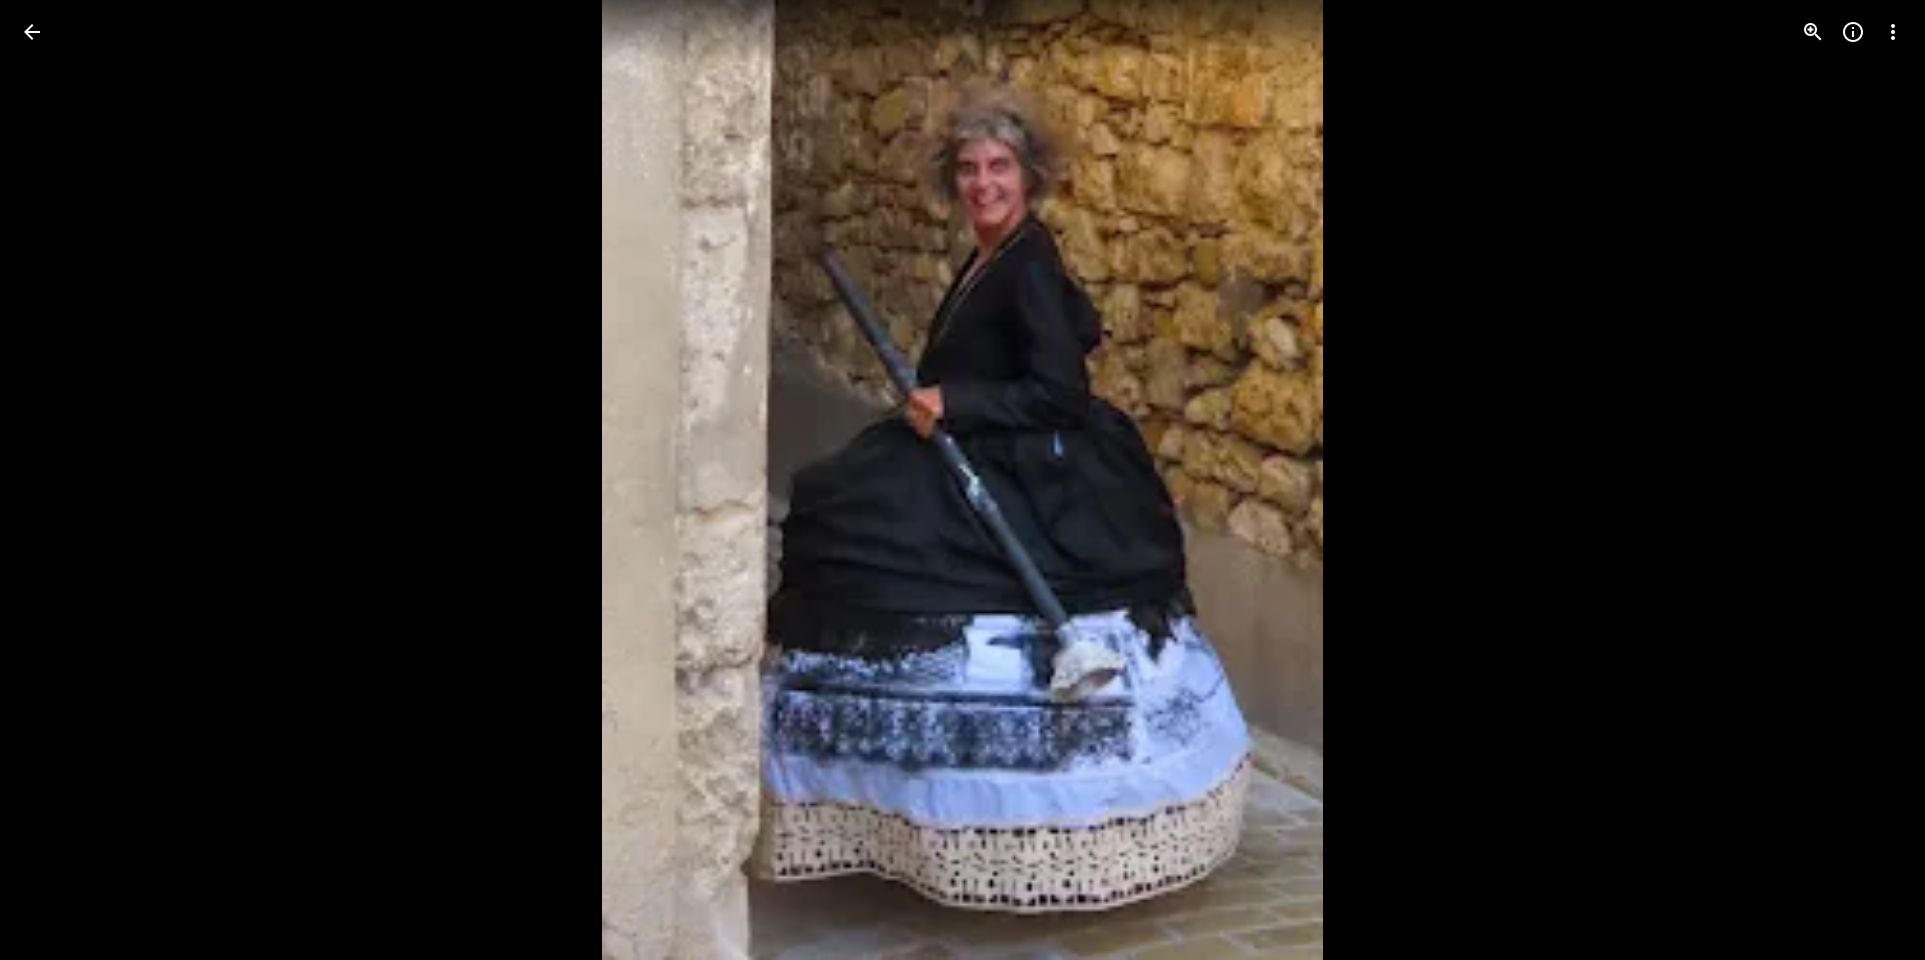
static void picture(SkCanvas* c, const char* path, float l, float t, float r, float b) {
  auto image = SkImages::DeferredFromEncodedData(SkData::MakeFromFileName(path));
  c->drawImageRect(image, SkRect::MakeLTRB(l, t, r, b), SkSamplingOptions());
}

void draw(SkCanvas* c) {
  SkPaint paint;
  paint.setAntiAlias(true);
  c->clear(0xff000000);
  picture(c, "img_05.png", 602, 0, 1323, 960);
  {
    const SkColor colors[] = {0x99000000, 0x00000000};
    const float stops[] = {0, 1};
    const SkPoint ends[] = {{963, 0}, {963, 64}};
    paint.setShader(SkGradientShader::MakeLinear(ends, colors, stops, 2, SkTileMode::kClamp));
    paint.setAlpha(255);
  }
  c->drawRect(SkRect::MakeLTRB(602, 0, 1323, 62), paint);
  picture(c, "img_01.png", 24, 24, 40, 40);
  picture(c, "img_02.png", 1804, 23, 1822, 41);
  picture(c, "img_03.png", 1843, 22, 1863, 42);
  picture(c, "img_04.png", 1891, 24, 1895, 40);
}
